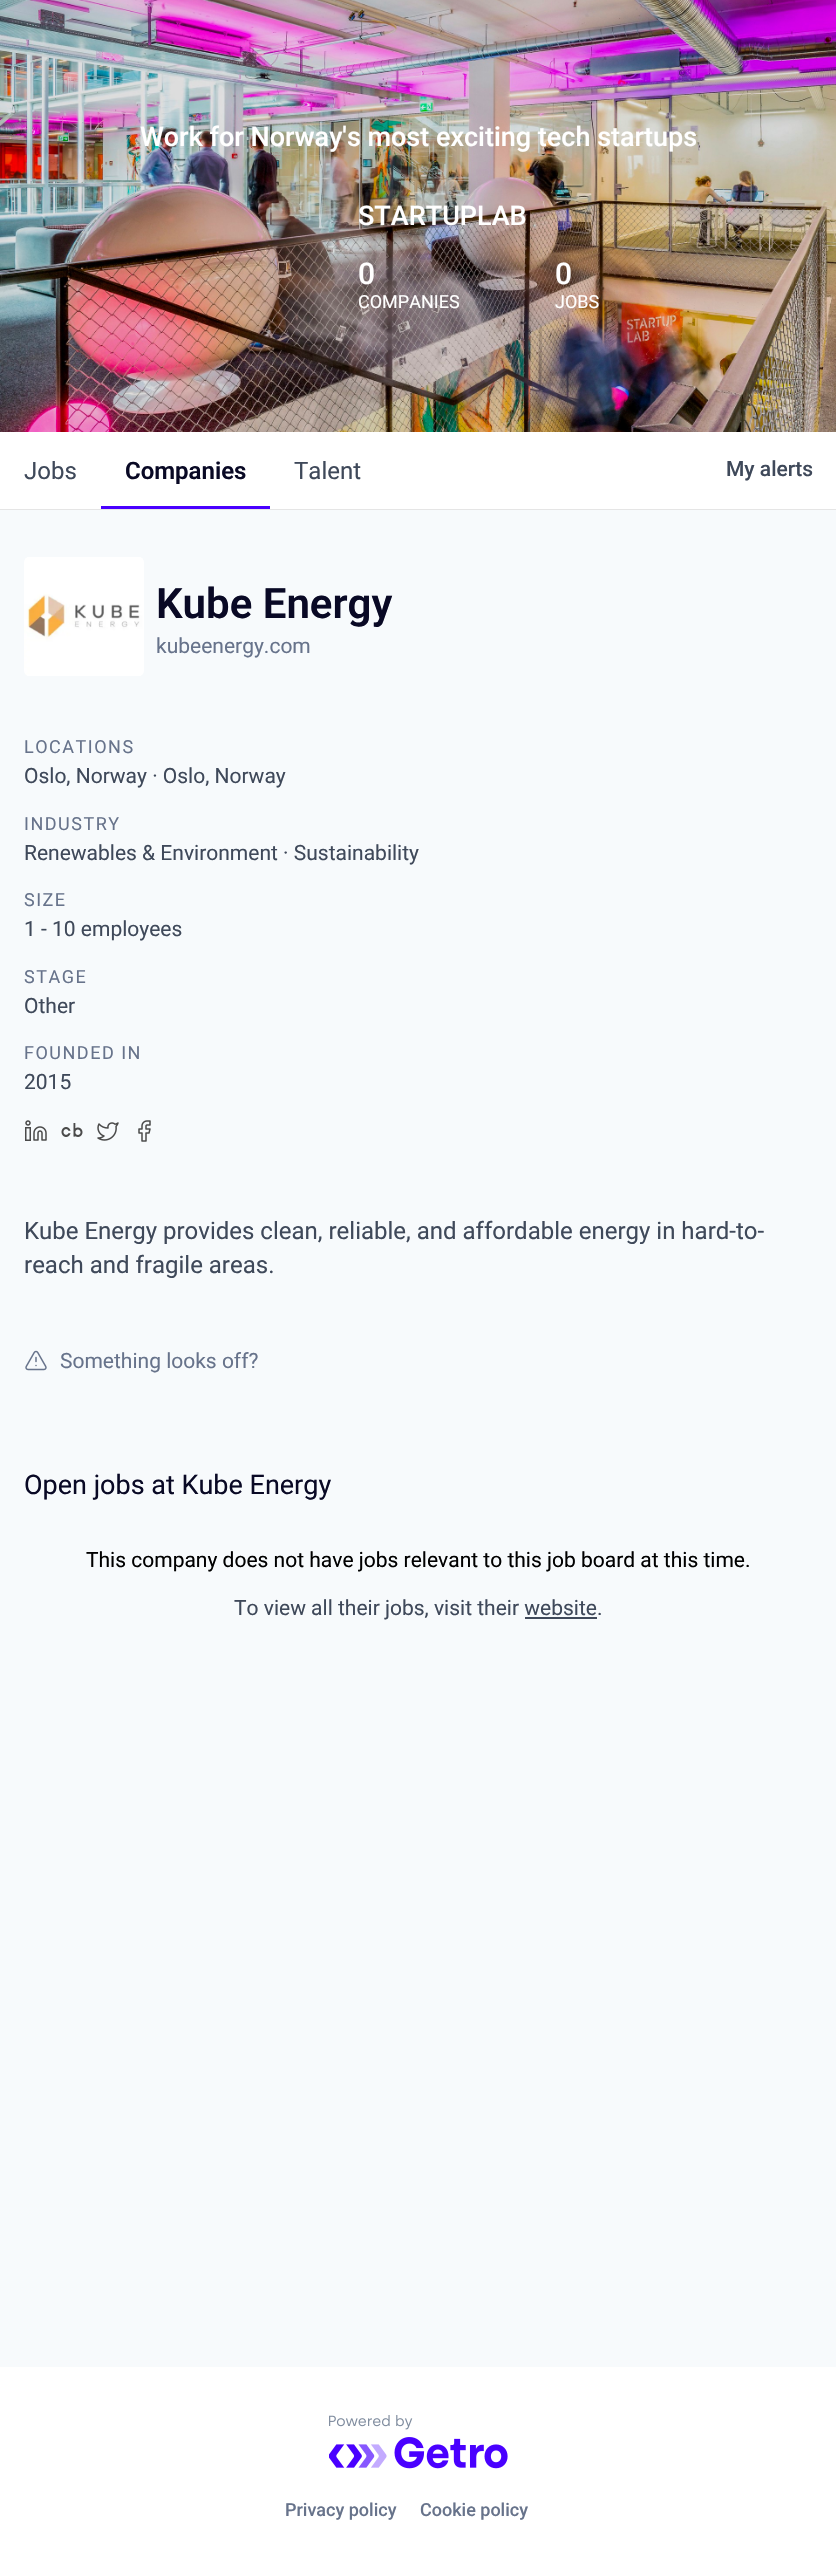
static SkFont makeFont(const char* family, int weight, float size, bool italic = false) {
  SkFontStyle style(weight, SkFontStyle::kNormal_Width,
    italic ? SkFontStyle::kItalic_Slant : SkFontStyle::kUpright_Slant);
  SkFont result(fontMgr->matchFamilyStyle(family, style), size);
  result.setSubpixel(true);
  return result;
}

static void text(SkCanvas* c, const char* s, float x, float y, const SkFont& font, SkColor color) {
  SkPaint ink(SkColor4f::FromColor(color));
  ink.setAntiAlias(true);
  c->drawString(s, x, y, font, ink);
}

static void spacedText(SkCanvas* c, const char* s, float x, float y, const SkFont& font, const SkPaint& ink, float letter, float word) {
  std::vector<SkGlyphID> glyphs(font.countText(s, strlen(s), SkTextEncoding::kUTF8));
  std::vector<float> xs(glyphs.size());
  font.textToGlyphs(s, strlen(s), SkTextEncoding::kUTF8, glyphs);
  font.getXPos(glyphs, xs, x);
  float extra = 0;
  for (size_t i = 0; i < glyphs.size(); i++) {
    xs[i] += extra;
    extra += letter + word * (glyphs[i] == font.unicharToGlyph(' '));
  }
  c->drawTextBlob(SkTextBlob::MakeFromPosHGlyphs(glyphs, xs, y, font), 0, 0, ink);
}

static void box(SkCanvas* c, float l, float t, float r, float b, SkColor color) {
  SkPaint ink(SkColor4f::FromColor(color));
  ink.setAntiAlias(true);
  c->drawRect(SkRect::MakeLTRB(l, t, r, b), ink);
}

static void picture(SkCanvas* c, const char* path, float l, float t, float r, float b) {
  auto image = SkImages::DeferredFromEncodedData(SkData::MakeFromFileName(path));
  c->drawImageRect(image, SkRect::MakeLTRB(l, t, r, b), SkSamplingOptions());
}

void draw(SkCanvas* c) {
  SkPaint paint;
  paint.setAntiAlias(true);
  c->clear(0xfff7fafc);
  picture(c, "img_01.png", 0, 0, 836, 432);
  SkFont face1 = makeFont("Roboto", 500, 27);
  text(c, "Work for Norway's most exciting tech startups", 140, 146, face1, 0xffffffff);
  text(c, "STARTUPLAB", 358, 225, face1, 0xffffffff);
  SkFont face2 = makeFont("Roboto", 500, 30);
  text(c, "0", 358, 284, face2, 0xffffffff);
  SkFont face3 = makeFont("Roboto", 400, 18);
  text(c, "COMPANIES", 358, 308, face3, 0xffffffff);
  text(c, "0", 555, 284, face2, 0xffffffff);
  text(c, "JOBS", 555, 308, face3, 0xffffffff);
  box(c, 0, 509, 836, 510, 0xffe5e5e5);
  box(c, 0, 432, 836, 509, 0xffffffff);
  SkFont face4 = makeFont("Roboto", 400, 24);
  text(c, "Jobs", 24, 479, face4, 0xff3f495a);
  SkFont face5 = makeFont("Roboto", 600, 24);
  text(c, "Companies", 125, 479, face5, 0xff090925);
  box(c, 101, 506, 270, 509, 0xff4900ff);
  text(c, "Talent", 294, 479, face4, 0xff3f495a);
  SkFont face6 = makeFont("Roboto", 500, 21);
  text(c, "My alerts", 726, 476, face6, 0xff3f495a);
  picture(c, "img_02.png", 24, 557, 144, 676);
  SkFont face7 = makeFont("Roboto", 600, 42);
  text(c, "Kube Energy", 156, 618, face7, 0xff090925);
  SkFont face8 = makeFont("Roboto", 400, 21);
  text(c, "kubeenergy.com", 156, 653, face8, 0xff67738b);
  paint.setColor(0xff67738b);
  spacedText(c, "LOCATIONS", 24, 753, face3, paint, 1.5f, 0);
  text(c, "Oslo, Norway · Oslo, Norway", 24, 783, face8, 0xff3f495a);
  spacedText(c, "INDUSTRY", 24, 830, face3, paint, 1.5f, 0);
  text(c, "Renewables & Environment · Sustainability", 24, 860, face8, 0xff3f495a);
  spacedText(c, "SIZE", 24, 906, face3, paint, 1.5f, 0);
  text(c, "1 - 10 employees", 24, 936, face8, 0xff3f495a);
  spacedText(c, "STAGE", 24, 983, face3, paint, 1.5f, 0);
  text(c, "Other", 24, 1013, face8, 0xff3f495a);
  spacedText(c, "FOUNDED IN", 24, 1059, face3, paint, 1.5f, 0);
  text(c, "2015", 24, 1089, face8, 0xff3f495a);
  picture(c, "img_03.png", 25, 1120, 47, 1141);
  picture(c, "img_04.png", 61, 1123, 83, 1137);
  picture(c, "img_05.png", 97, 1122, 119, 1141);
  picture(c, "img_06.png", 138, 1120, 151, 1142);
  text(c, "Kube Energy provides clean, reliable, and affordable energy in hard-to-", 24, 1239, face4, 0xff3f495a);
  text(c, "reach and fragile areas.", 24, 1273, face4, 0xff3f495a);
  picture(c, "img_07.png", 25, 1350, 47, 1371);
  text(c, "Something looks off?", 60, 1368, face8, 0xff67738b);
  SkFont face9 = makeFont("Roboto", 400, 27);
  text(c, "Open jobs at Kube Energy", 24, 1494, face9, 0xff090925);
  text(c, "This company does not have jobs relevant to this job board at this time.", 86, 1567, face8, 0xff000000);
  text(c, "To view all their jobs, visit their website.", 234, 1615, face8, 0xff3f495a);
  box(c, 525, 1617, 597, 1619, 0xff3f495a);
  box(c, 0, 2367, 836, 2573, 0xffffffff);
  picture(c, "img_08.png", 329, 2415, 508, 2469);
  SkFont face10 = makeFont("Roboto", 500, 18);
  text(c, "Privacy policy", 285, 2516, face10, 0xff67738b);
  text(c, "Cookie policy", 420, 2516, face10, 0xff67738b);
}
